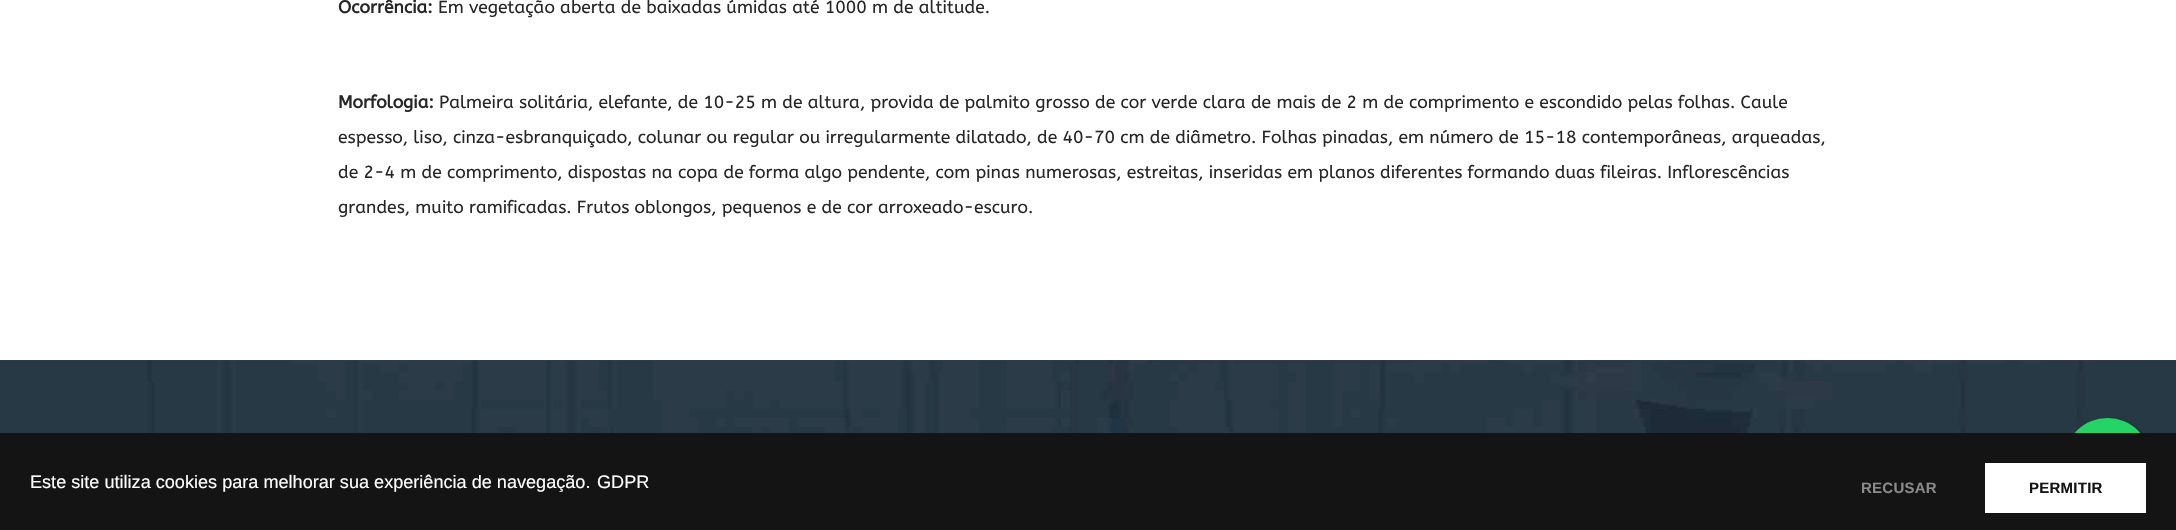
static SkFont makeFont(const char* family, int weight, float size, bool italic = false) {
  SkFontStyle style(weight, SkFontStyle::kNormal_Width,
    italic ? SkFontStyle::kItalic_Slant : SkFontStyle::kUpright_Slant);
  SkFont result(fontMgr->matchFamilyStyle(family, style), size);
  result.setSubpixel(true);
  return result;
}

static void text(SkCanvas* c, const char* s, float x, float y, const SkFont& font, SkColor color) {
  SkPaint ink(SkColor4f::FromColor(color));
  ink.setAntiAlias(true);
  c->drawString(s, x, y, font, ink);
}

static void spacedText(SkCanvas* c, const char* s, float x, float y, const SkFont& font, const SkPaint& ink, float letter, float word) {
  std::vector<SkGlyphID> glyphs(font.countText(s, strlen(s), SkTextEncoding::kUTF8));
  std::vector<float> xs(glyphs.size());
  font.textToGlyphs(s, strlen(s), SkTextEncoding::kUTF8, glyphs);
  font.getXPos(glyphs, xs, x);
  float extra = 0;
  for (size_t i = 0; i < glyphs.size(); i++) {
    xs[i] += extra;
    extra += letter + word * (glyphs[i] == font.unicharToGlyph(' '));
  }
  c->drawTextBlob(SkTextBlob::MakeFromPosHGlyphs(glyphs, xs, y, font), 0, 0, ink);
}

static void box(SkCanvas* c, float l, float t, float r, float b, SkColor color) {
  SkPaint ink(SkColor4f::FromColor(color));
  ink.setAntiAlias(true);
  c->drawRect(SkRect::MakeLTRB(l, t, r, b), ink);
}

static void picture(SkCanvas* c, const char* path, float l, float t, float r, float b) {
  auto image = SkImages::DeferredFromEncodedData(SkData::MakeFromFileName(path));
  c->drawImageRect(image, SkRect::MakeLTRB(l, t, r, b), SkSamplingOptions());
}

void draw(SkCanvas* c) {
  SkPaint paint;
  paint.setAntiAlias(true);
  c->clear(0xffffffff);
  box(c, 0, 360, 2176, 361, 0xff313c4b);
  SkFont face1 = makeFont("ABeeZee", 700, 17.5f);
  text(c, "Ocorrência:", 338, 13, face1, 0xff262626);
  SkFont face2 = makeFont("ABeeZee", 400, 17.5f);
  text(c, "Em vegetação aberta de baixadas úmidas até 1000 m de altitude.", 438, 13, face2, 0xff262626);
  text(c, "Morfologia:", 338, 108, face1, 0xff262626);
  text(c, "Palmeira solitária, elefante, de 10-25 m de altura, provida de palmito grosso de cor verde clara de mais de 2 m de comprimento e escondido pelas folhas. Caule", 439, 108, face2, 0xff262626);
  text(c, "espesso, liso, cinza-esbranquiçado, colunar ou regular ou irregularmente dilatado, de 40-70 cm de diâmetro. Folhas pinadas, em número de 15-18 contemporâneas, arqueadas,", 338, 143, face2, 0xff262626);
  text(c, "de 2-4 m de comprimento, dispostas na copa de forma algo pendente, com pinas numerosas, estreitas, inseridas em planos diferentes formando duas fileiras. Inflorescências", 338, 178, face2, 0xff262626);
  text(c, "grandes, muito ramificadas. Frutos oblongos, pequenos e de cor arroxeado-escuro.", 338, 213, face2, 0xff262626);
  picture(c, "img_01.png", 0, 360, 2176, 433);
  paint.setColor(0x4d000000);
  paint.setMaskFilter(SkMaskFilter::MakeBlur(kNormal_SkBlurStyle, 2));
  c->drawRoundRect(SkRect::MakeLTRB(2066, 420, 2154, 508), 44, 44, paint);
  paint.setMaskFilter(nullptr);
  paint.setColor(0xff25d366);
  c->drawCircle(2107.5f, 461.5f, 43.5f, paint);
  box(c, 0, 433, 2176, 530, 0xff141414);
  SkFont face3 = makeFont("Liberation Sans", 400, 18.1f);
  text(c, "Este site utiliza cookies para melhorar sua experiência de navegação.", 30, 488, face3, 0xffffffff);
  text(c, "GDPR", 597, 488, face3, 0xffffffff);
  SkFont face4 = makeFont("Liberation Sans", 700, 15);
  paint.setColor(0xff8a8a8a);
  spacedText(c, "RECUSAR", 1861, 493, face4, paint, 0.25f, 0);
  box(c, 1985, 463, 2146, 513, 0xffffffff);
  paint.setColor(0xff141414);
  spacedText(c, "PERMITIR", 2029, 493, face4, paint, 0.25f, 0);
}
